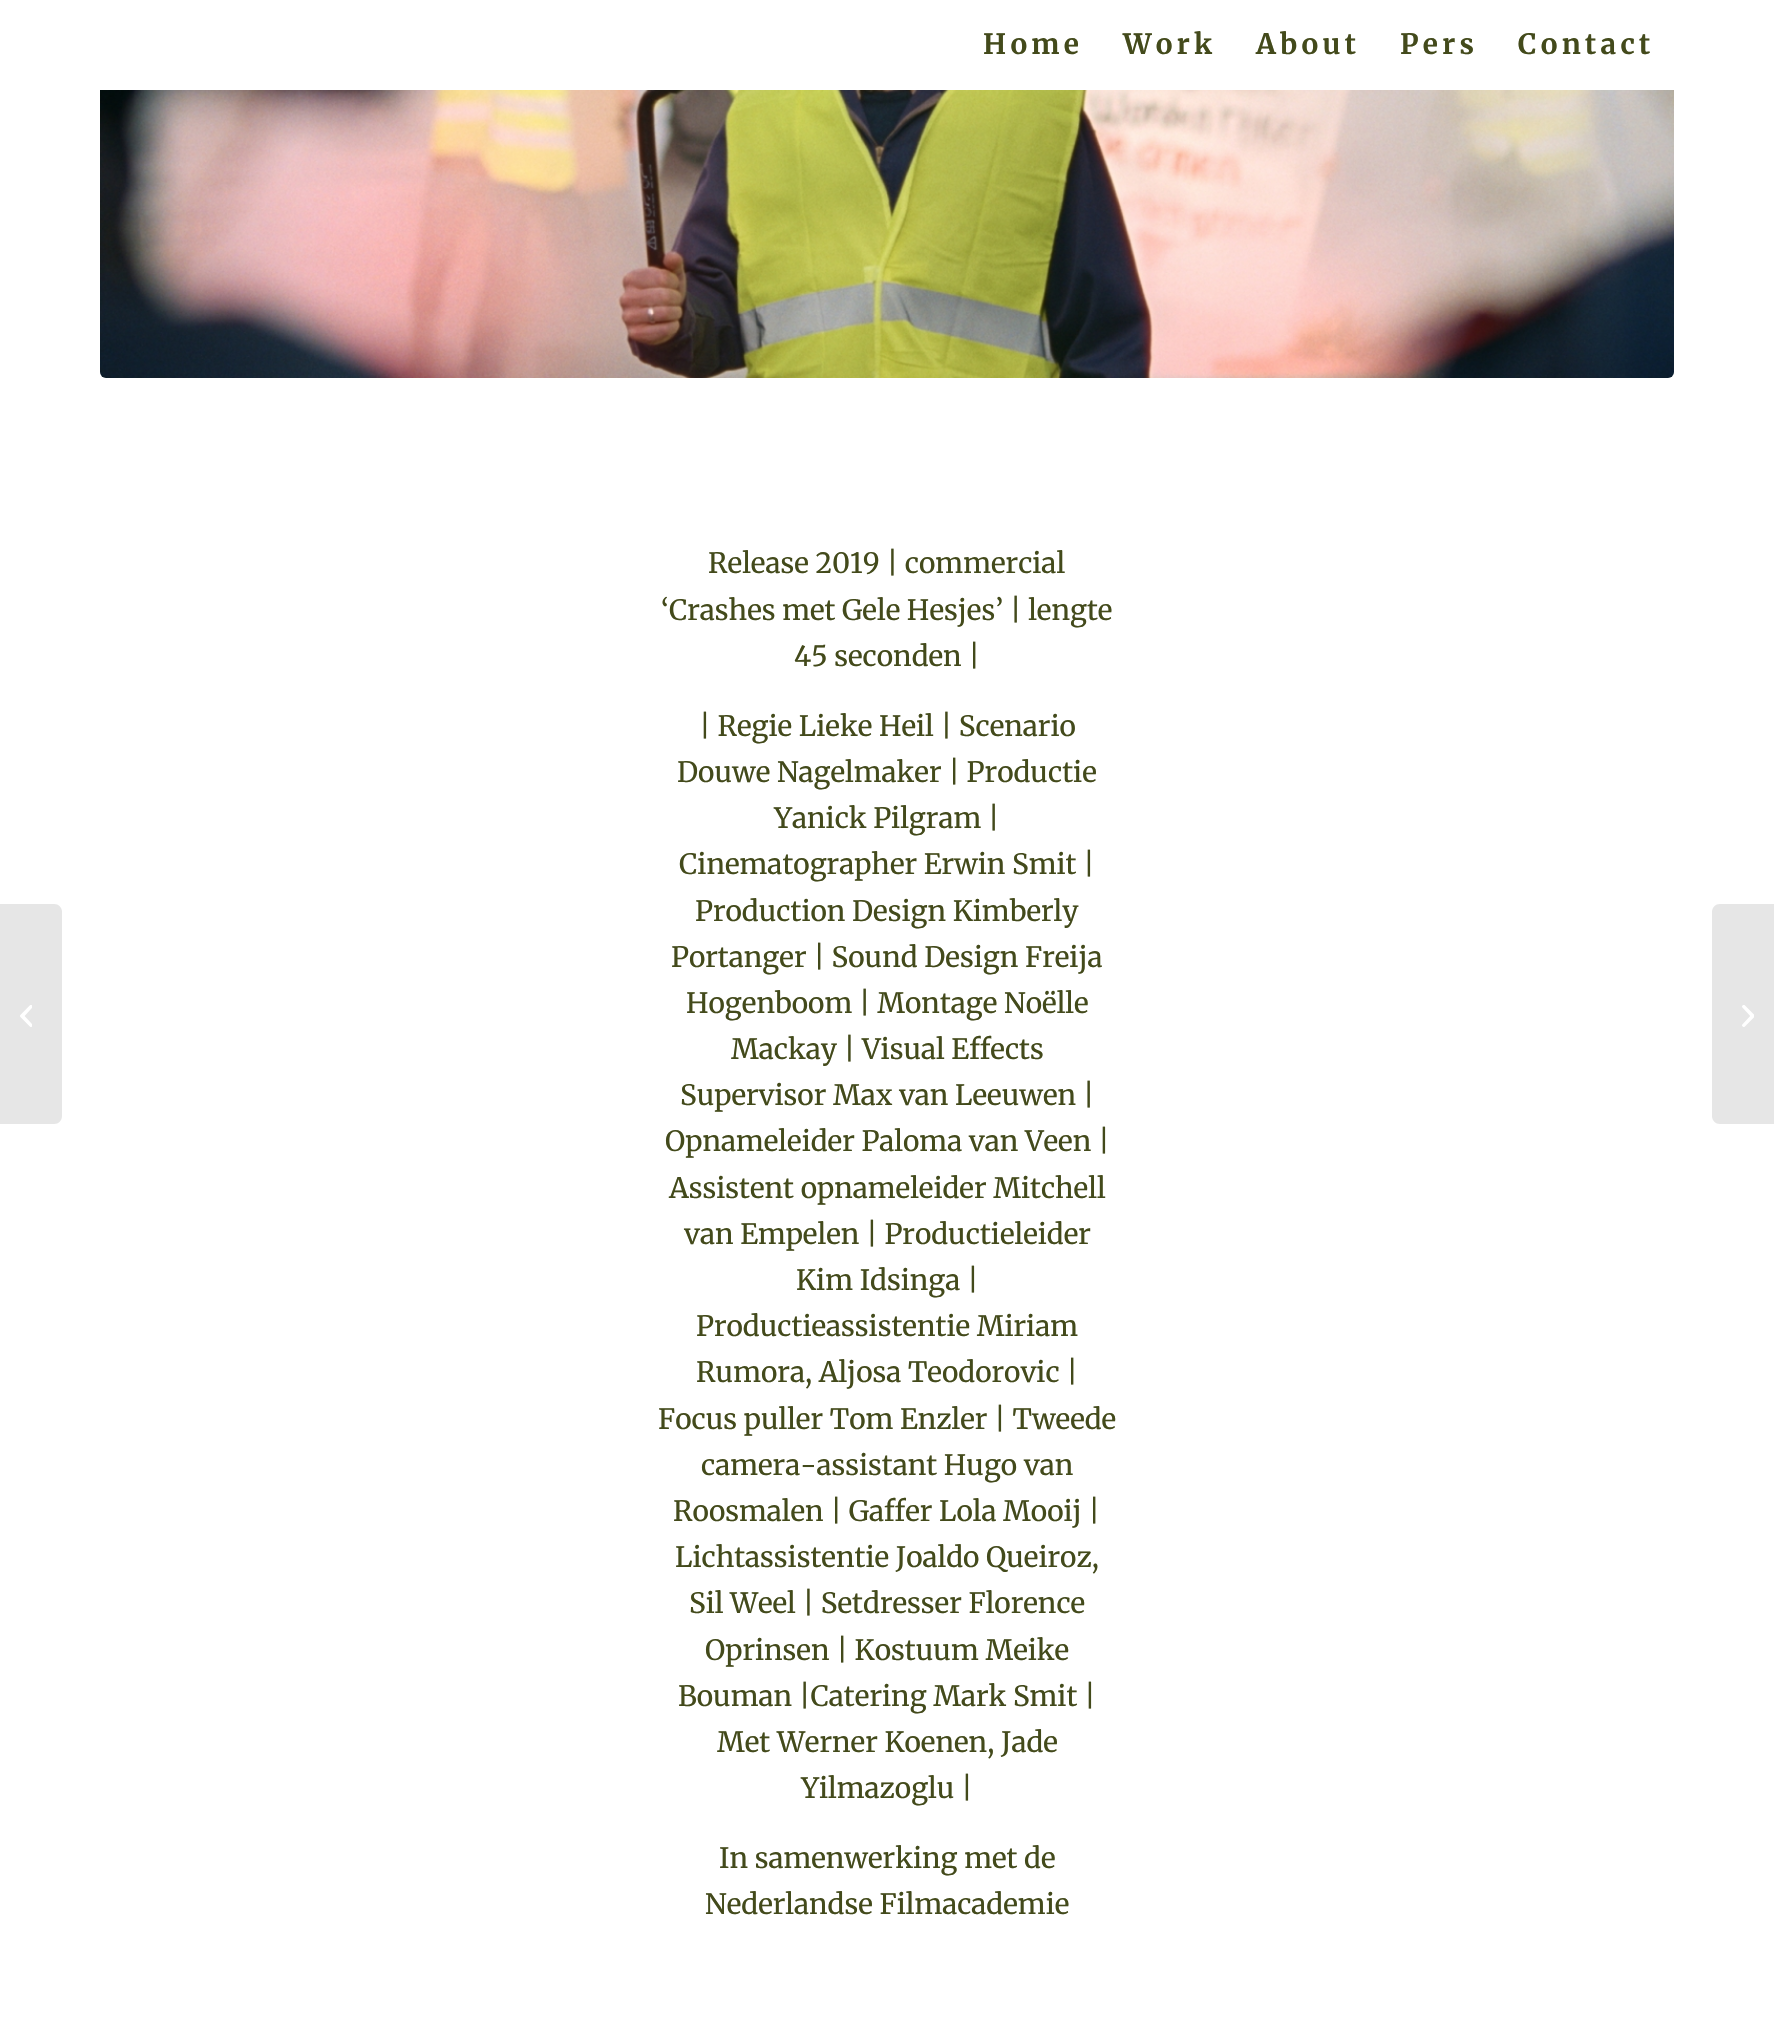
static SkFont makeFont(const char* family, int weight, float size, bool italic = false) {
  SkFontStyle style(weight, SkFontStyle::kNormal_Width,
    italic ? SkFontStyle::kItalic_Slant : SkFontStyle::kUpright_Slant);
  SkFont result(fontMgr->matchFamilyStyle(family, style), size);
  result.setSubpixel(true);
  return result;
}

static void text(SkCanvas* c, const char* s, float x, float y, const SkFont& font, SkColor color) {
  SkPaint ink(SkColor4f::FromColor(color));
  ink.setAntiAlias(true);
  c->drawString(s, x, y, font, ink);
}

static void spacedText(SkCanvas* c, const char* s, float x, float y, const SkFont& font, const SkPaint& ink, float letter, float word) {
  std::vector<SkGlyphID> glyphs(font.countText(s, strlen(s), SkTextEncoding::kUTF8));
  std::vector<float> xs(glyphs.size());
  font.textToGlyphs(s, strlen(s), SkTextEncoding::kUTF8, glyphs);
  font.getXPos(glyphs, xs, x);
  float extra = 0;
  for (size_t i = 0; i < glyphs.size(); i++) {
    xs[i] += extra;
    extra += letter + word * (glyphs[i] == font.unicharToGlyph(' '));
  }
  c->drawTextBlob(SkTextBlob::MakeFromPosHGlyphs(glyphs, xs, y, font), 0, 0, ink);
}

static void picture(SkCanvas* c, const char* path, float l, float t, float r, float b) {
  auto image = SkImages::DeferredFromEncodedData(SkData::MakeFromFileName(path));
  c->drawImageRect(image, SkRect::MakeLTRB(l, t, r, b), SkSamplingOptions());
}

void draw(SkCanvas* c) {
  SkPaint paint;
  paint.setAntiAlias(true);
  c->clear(0xffffffff);
  SkFont face1 = makeFont("Merriweather", 700, 28);
  paint.setColor(0xff434a1b);
  spacedText(c, "Home", 983, 54, face1, paint, 4.25f, 0);
  spacedText(c, "Work", 1123, 54, face1, paint, 4.25f, 0);
  spacedText(c, "About", 1256, 54, face1, paint, 4.25f, 0);
  spacedText(c, "Pers", 1400, 54, face1, paint, 4.25f, 0);
  spacedText(c, "Contact", 1518, 54, face1, paint, 4.25f, 0);
  paint.setColor(0xffe6e6e6);
  c->drawPath(SkPathBuilder().moveTo(0, 904).lineTo(54, 904).cubicTo(58.5f, 904, 62, 907.5f, 62, 912).lineTo(62, 1116).cubicTo(62, 1120.5f, 58.5f, 1124, 54, 1124).lineTo(0, 1124).close().detach(), paint);
  picture(c, "img_01.png", 20, 1005, 32, 1027);
  picture(c, "img_02.png", 100, 90, 1674, 378);
  SkFont face2 = makeFont("Merriweather", 400, 28);
  text(c, "Release 2019 | commercial", 708, 573, face2, 0xff434a1b);
  text(c, "‘Crashes met Gele Hesjes’ | lengte", 661, 620, face2, 0xff434a1b);
  text(c, "45 seconden |", 794, 666, face2, 0xff434a1b);
  text(c, "| Regie Lieke Heil | Scenario", 699, 736, face2, 0xff434a1b);
  text(c, "Douwe Nagelmaker | Productie", 677, 782, face2, 0xff434a1b);
  text(c, "Yanick Pilgram |", 774, 828, face2, 0xff434a1b);
  text(c, "Cinematographer Erwin Smit |", 679, 874, face2, 0xff434a1b);
  text(c, "Production Design Kimberly", 695, 921, face2, 0xff434a1b);
  text(c, "Portanger | Sound Design Freija", 671, 967, face2, 0xff434a1b);
  text(c, "Hogenboom | Montage Noëlle", 686, 1013, face2, 0xff434a1b);
  text(c, "Mackay | Visual Effects", 731, 1059, face2, 0xff434a1b);
  text(c, "Supervisor Max van Leeuwen |", 680, 1105, face2, 0xff434a1b);
  text(c, "Opnameleider Paloma van Veen |", 665, 1151, face2, 0xff434a1b);
  text(c, "Assistent opnameleider Mitchell", 669, 1198, face2, 0xff434a1b);
  text(c, "van Empelen | Productieleider", 684, 1244, face2, 0xff434a1b);
  text(c, "Kim Idsinga |", 796, 1290, face2, 0xff434a1b);
  text(c, "Productieassistentie Miriam", 696, 1336, face2, 0xff434a1b);
  text(c, "Rumora, Aljosa Teodorovic |", 696, 1382, face2, 0xff434a1b);
  text(c, "Focus puller Tom Enzler | Tweede", 658, 1429, face2, 0xff434a1b);
  text(c, "camera-assistant Hugo van", 701, 1475, face2, 0xff434a1b);
  text(c, "Roosmalen | Gaffer Lola Mooij |", 673, 1521, face2, 0xff434a1b);
  text(c, "Lichtassistentie Joaldo Queiroz,", 675, 1567, face2, 0xff434a1b);
  text(c, "Sil Weel | Setdresser Florence", 689, 1613, face2, 0xff434a1b);
  text(c, "Oprinsen | Kostuum Meike", 705, 1660, face2, 0xff434a1b);
  text(c, "Bouman |Catering Mark Smit |", 678, 1706, face2, 0xff434a1b);
  text(c, "Met Werner Koenen, Jade", 717, 1752, face2, 0xff434a1b);
  text(c, "Yilmazoglu |", 801, 1798, face2, 0xff434a1b);
  text(c, "In samenwerking met de", 719, 1868, face2, 0xff434a1b);
  text(c, "Nederlandse Filmacademie", 705, 1914, face2, 0xff434a1b);
  c->drawPath(SkPathBuilder().moveTo(1720, 904).lineTo(1774, 904).lineTo(1774, 1124).lineTo(1720, 1124).cubicTo(1715.5f, 1124, 1712, 1120.5f, 1712, 1116).lineTo(1712, 912).cubicTo(1712, 907.5f, 1715.5f, 904, 1720, 904).close().detach(), paint);
  picture(c, "img_03.png", 1742, 1005, 1754, 1027);
}
